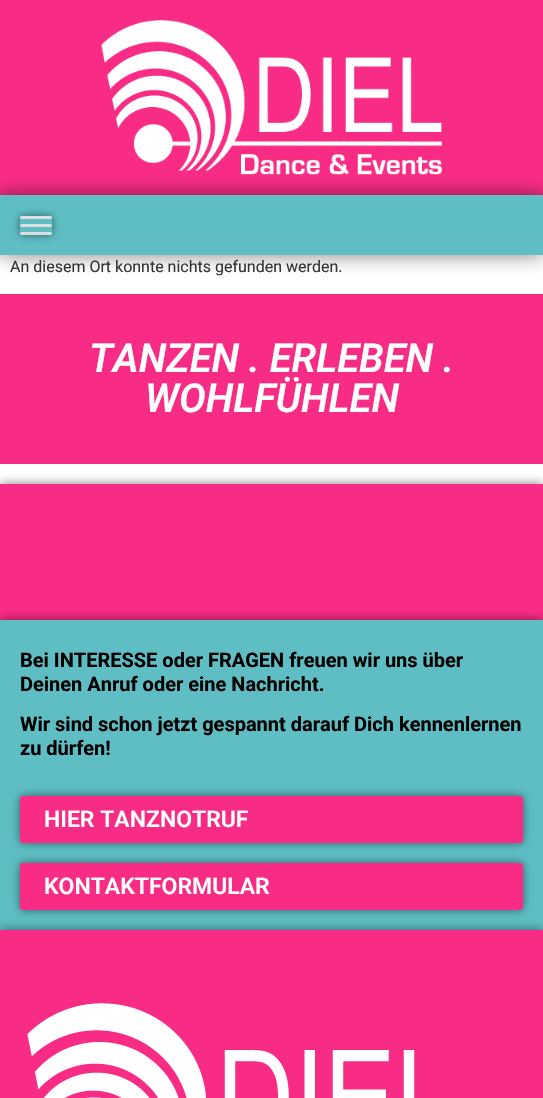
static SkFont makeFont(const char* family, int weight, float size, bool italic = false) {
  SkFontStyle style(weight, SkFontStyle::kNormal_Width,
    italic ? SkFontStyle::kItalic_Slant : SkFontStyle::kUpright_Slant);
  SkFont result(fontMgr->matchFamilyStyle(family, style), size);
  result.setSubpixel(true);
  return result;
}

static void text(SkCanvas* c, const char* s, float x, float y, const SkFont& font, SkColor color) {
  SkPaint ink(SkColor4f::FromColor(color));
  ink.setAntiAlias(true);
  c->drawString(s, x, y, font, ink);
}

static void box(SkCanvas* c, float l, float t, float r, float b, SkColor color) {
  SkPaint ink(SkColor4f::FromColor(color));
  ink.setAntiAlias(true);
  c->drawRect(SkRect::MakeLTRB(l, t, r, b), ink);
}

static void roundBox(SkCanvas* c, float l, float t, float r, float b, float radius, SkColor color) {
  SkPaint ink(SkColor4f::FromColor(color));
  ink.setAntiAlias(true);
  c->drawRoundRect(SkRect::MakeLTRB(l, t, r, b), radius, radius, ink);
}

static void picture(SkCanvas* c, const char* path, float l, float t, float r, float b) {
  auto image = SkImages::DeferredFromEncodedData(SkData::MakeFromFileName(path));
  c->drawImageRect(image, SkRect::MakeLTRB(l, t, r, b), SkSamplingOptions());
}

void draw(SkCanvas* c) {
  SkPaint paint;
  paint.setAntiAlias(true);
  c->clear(0xffffffff);
  box(c, 0, 0, 543, 195, 0xfff92c85);
  picture(c, "img_01.png", 101, 20, 442, 175);
  paint.setColor(0x80000000);
  paint.setMaskFilter(SkMaskFilter::MakeBlur(kNormal_SkBlurStyle, 10));
  c->drawRect(SkRect::MakeLTRB(0, 195, 543, 255), paint);
  paint.setMaskFilter(nullptr);
  box(c, 0, 195, 543, 255, 0xff5ebec4);
  c->save();
  c->clipPath(SkPathBuilder(SkPathFillType::kEvenOdd).moveTo(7, 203).lineTo(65, 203).lineTo(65, 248).lineTo(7, 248).close().moveTo(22.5f, 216).lineTo(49.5f, 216).cubicTo(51, 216, 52, 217, 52, 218.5f).lineTo(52, 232.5f).cubicTo(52, 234, 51, 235, 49.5f, 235).lineTo(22.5f, 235).cubicTo(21, 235, 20, 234, 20, 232.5f).lineTo(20, 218.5f).cubicTo(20, 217, 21, 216, 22.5f, 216).close().detach(), true);
  paint.setMaskFilter(SkMaskFilter::MakeBlur(kNormal_SkBlurStyle, 4));
  c->drawRoundRect(SkRect::MakeLTRB(20, 216, 52, 235), 2.5f, 2.5f, paint);
  paint.setMaskFilter(nullptr);
  c->restore();
  roundBox(c, 20, 216, 52, 219, 1.5f, 0xffdddddd);
  roundBox(c, 20, 224, 52, 227, 1.5f, 0xffdddddd);
  roundBox(c, 20, 232, 52, 235, 1.5f, 0xffdddddd);
  SkFont face1 = makeFont("Roboto", 400, 16);
  text(c, "An diesem Ort konnte nichts gefunden werden.", 10, 272, face1, 0xff333333);
  box(c, 0, 294, 543, 464, 0xfff92c85);
  SkFont face2 = makeFont("Roboto", 600, 40, true);
  text(c, "TANZEN . ERLEBEN .", 89, 372, face2, 0xffffffff);
  text(c, "WOHLFÜHLEN", 145, 412, face2, 0xffffffff);
  paint.setMaskFilter(SkMaskFilter::MakeBlur(kNormal_SkBlurStyle, 5));
  c->drawRect(SkRect::MakeLTRB(0, 484, 543, 620), paint);
  paint.setMaskFilter(nullptr);
  box(c, 0, 484, 543, 620, 0xfff92c85);
  paint.setMaskFilter(SkMaskFilter::MakeBlur(kNormal_SkBlurStyle, 5));
  c->drawRect(SkRect::MakeLTRB(0, 620, 543, 930), paint);
  paint.setMaskFilter(nullptr);
  box(c, 0, 620, 543, 930, 0xff5ebec4);
  SkFont face3 = makeFont("Roboto", 700, 20);
  text(c, "Bei INTERESSE oder FRAGEN freuen wir uns über", 20, 667, face3, 0xff000000);
  text(c, "Deinen Anruf oder eine Nachricht.", 20, 691, face3, 0xff000000);
  text(c, "Wir sind schon jetzt gespannt darauf Dich kennenlernen", 20, 731, face3, 0xff000000);
  text(c, "zu dürfen!", 20, 755, face3, 0xff000000);
  paint.setMaskFilter(SkMaskFilter::MakeBlur(kNormal_SkBlurStyle, 5));
  c->drawRoundRect(SkRect::MakeLTRB(20, 796, 523, 843), 3, 3, paint);
  paint.setMaskFilter(nullptr);
  roundBox(c, 20, 796, 523, 843, 3, 0xfff92c85);
  SkFont face4 = makeFont("Roboto", 600, 23);
  text(c, "HIER TANZNOTRUF", 44, 827, face4, 0xffffffff);
  paint.setMaskFilter(SkMaskFilter::MakeBlur(kNormal_SkBlurStyle, 5));
  c->drawRoundRect(SkRect::MakeLTRB(20, 863, 523, 910), 3, 3, paint);
  paint.setMaskFilter(nullptr);
  roundBox(c, 20, 863, 523, 910, 3, 0xfff92c85);
  text(c, "KONTAKTFORMULAR", 44, 894, face4, 0xffffffff);
  paint.setMaskFilter(SkMaskFilter::MakeBlur(kNormal_SkBlurStyle, 5));
  c->drawRect(SkRect::MakeLTRB(0, 930, 543, 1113), paint);
  paint.setMaskFilter(nullptr);
  box(c, 0, 930, 543, 1098, 0xfff92c85);
  picture(c, "img_02.png", 27, 1003, 415, 1098);
}
